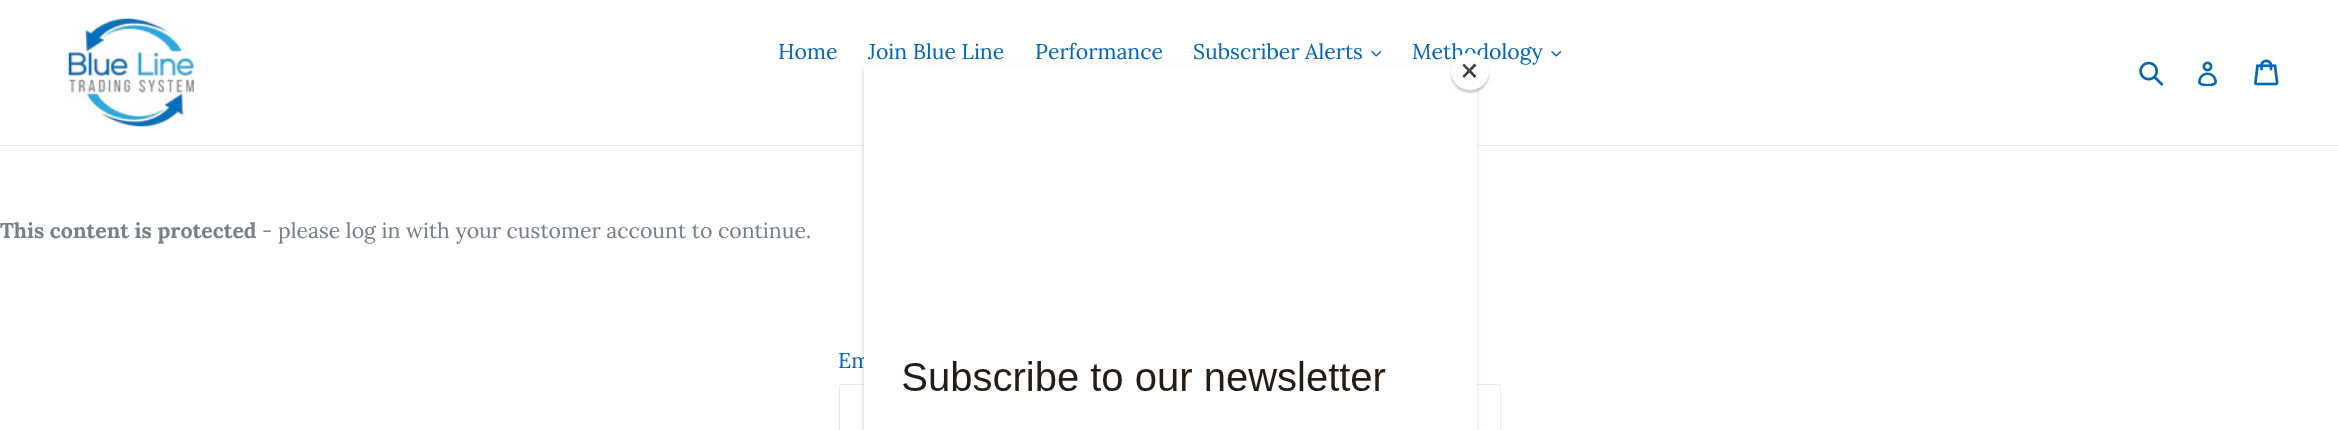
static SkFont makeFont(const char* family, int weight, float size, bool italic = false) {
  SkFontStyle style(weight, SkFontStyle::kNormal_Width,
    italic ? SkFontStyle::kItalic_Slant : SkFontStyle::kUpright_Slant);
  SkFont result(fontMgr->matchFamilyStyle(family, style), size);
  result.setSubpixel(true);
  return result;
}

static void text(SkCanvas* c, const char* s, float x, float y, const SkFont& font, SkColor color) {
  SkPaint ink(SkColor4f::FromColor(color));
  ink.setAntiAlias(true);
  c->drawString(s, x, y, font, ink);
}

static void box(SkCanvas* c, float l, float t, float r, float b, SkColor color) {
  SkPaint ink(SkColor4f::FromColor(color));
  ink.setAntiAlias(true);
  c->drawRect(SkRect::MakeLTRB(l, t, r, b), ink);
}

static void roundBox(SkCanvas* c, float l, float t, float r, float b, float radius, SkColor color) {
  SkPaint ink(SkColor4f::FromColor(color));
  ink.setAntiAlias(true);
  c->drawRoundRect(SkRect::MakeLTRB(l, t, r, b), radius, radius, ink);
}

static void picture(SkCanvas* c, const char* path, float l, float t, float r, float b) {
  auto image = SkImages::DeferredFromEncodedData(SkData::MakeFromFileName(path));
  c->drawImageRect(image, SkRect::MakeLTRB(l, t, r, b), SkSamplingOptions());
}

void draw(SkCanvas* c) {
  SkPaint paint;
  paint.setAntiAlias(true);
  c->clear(0xffffffff);
  box(c, 0, 145, 2338, 146, 0xffe8e9eb);
  picture(c, "img_01.png", 68, 18, 194, 127);
  SkFont face1 = makeFont("Lora", 400, 21.25f);
  text(c, "Home", 778, 59, face1, 0xff0768b6);
  text(c, "Join Blue Line", 868, 59, face1, 0xff0768b6);
  text(c, "Performance", 1035, 59, face1, 0xff0768b6);
  text(c, "Subscriber Alerts", 1193, 59, face1, 0xff0768b6);
  picture(c, "img_02.png", 1371, 50, 1381, 57);
  text(c, "Methodology", 1412, 59, face1, 0xff0768b6);
  picture(c, "img_02.png", 1551, 50, 1561, 57);
  picture(c, "img_03.png", 2139, 61, 2164, 86);
  picture(c, "img_04.png", 2198, 61, 2217, 86);
  picture(c, "img_05.png", 2254, 59, 2279, 86);
  SkFont face2 = makeFont("Lora", 700, 21.25f);
  text(c, "This content is protected", 0, 238, face2, 0xff788188);
  text(c, "- please log in with your customer account to continue.", 262, 238, face1, 0xff788188);
  text(c, "Em", 838, 368, face1, 0xff0768b6);
  paint.setStyle(SkPaint::kStroke_Style);
  paint.setStrokeWidth(1);
  paint.setColor(0xffe8e9eb);
  c->drawRoundRect(SkRect::MakeLTRB(839.5f, 384.5f, 1500.5f, 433.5f), 2, 2, paint);
  paint.setStyle(SkPaint::kFill_Style);
  paint.setColor(0x33000000);
  paint.setMaskFilter(SkMaskFilter::MakeBlur(kNormal_SkBlurStyle, 2.5f));
  c->drawRect(SkRect::MakeLTRB(864, 68, 1476, 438), paint);
  paint.setMaskFilter(nullptr);
  picture(c, "img_06.png", 864, 66, 1477, 430);
  paint.setMaskFilter(SkMaskFilter::MakeBlur(kNormal_SkBlurStyle, 1));
  c->drawRoundRect(SkRect::MakeLTRB(1451, 55, 1489, 93), 19, 19, paint);
  paint.setMaskFilter(nullptr);
  roundBox(c, 1451, 53, 1489, 90, 18.5f, 0xffffffff);
  paint.setColor(0xff414141);
  c->drawPath(SkPathBuilder().moveTo(1474.5f, 63.5f).lineTo(1476.5f, 65.5f).lineTo(1464, 78).lineTo(1462.5f, 76).close().detach(), paint);
  c->drawPath(SkPathBuilder().moveTo(1462.5f, 65.5f).lineTo(1464, 63.5f).lineTo(1476.5f, 76).lineTo(1474.5f, 78).close().detach(), paint);
}
